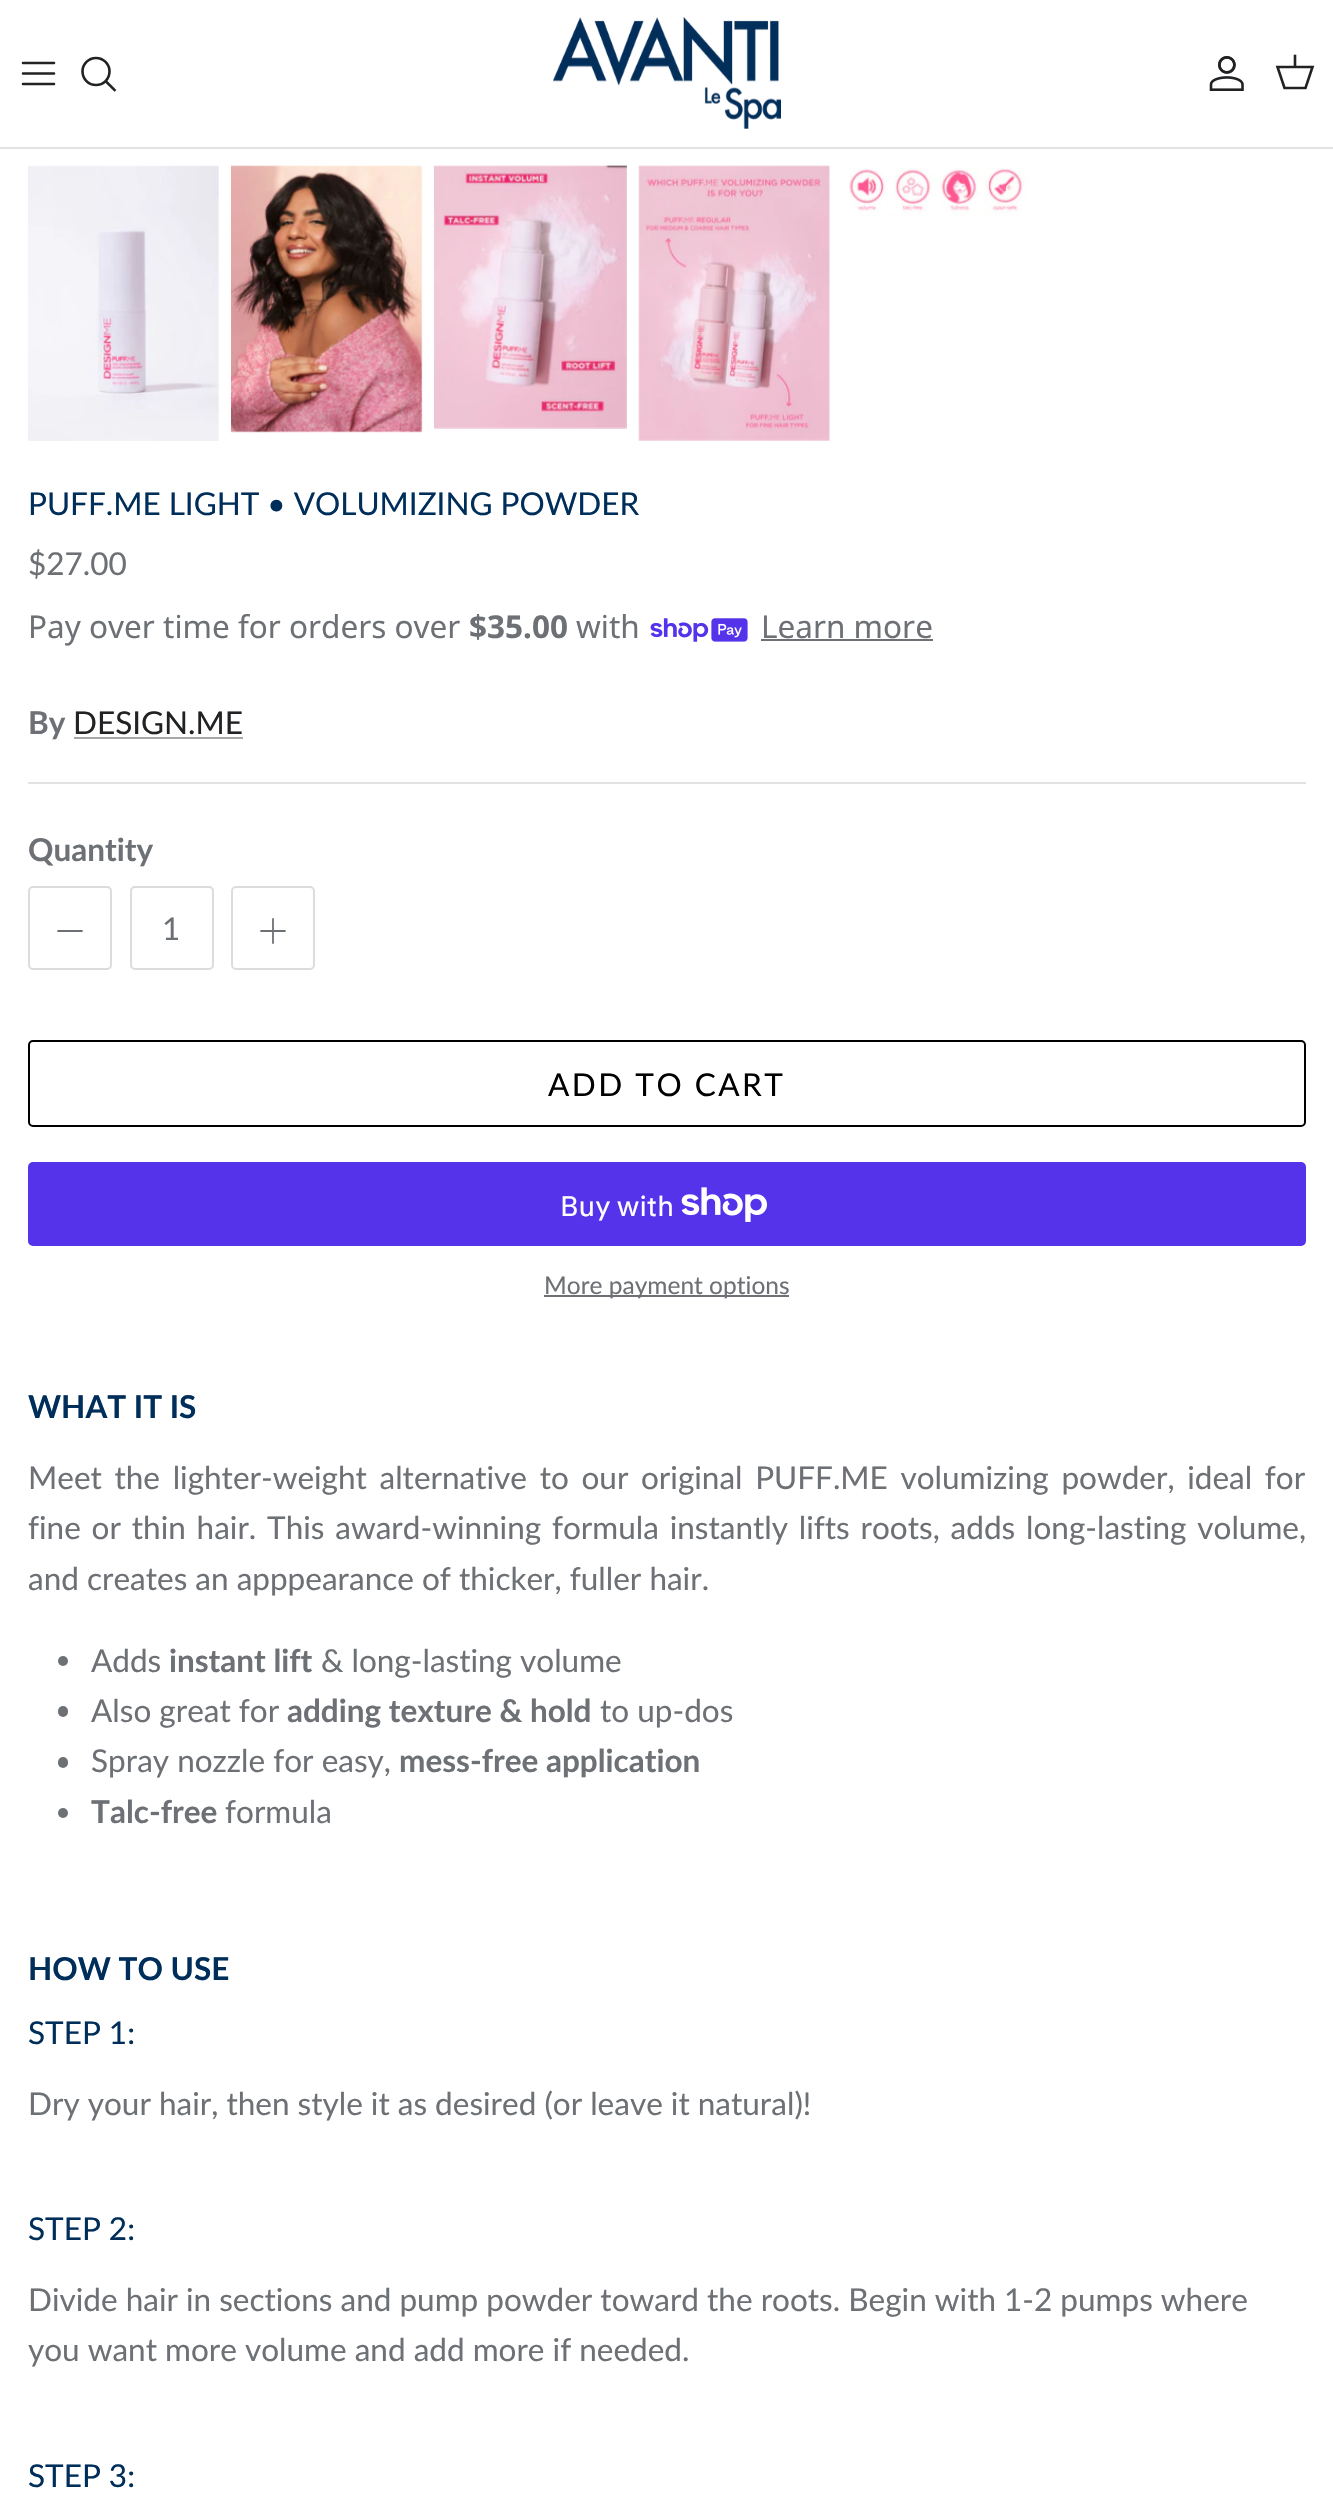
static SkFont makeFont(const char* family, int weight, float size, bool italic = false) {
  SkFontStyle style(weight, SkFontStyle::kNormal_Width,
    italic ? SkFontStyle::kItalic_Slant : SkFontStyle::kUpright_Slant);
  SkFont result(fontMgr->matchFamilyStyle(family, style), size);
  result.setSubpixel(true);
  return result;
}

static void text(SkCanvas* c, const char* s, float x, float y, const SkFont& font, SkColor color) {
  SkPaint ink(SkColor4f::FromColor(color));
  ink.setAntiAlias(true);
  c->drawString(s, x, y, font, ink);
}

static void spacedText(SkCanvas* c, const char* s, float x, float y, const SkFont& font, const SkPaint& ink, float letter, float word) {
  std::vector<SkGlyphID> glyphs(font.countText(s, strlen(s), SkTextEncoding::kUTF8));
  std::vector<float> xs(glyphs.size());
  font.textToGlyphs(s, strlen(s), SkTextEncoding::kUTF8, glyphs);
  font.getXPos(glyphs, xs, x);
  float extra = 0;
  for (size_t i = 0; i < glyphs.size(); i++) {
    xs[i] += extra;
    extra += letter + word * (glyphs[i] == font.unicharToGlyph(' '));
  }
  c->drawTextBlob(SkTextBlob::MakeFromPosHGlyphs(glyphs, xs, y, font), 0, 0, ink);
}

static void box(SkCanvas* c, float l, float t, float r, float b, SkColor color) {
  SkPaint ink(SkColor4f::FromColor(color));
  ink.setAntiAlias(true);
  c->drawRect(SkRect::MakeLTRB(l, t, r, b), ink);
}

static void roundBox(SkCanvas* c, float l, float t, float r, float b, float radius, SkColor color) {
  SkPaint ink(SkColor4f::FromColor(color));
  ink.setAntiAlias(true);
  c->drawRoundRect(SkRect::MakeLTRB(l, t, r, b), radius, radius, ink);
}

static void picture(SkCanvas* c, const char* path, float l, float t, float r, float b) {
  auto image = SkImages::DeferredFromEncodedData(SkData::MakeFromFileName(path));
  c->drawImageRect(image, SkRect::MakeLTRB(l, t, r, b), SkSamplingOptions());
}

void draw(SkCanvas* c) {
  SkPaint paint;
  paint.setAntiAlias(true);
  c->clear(0xffffffff);
  box(c, 0, 147, 1333, 149, 0xffe2e2e2);
  paint.setStyle(SkPaint::kStroke_Style);
  paint.setStrokeWidth(2.6f);
  paint.setStrokeCap(SkPaint::kRound_Cap);
  paint.setStrokeJoin(SkPaint::kRound_Join);
  paint.setColor(0xff202223);
  c->drawPath(SkPathBuilder().moveTo(23, 73.5f).lineTo(54, 73.5f).moveTo(23, 63).lineTo(54, 63).moveTo(23, 84).lineTo(54, 84).detach(), paint);
  paint.setStrokeCap(SkPaint::kButt_Cap);
  paint.setStrokeJoin(SkPaint::kMiter_Join);
  c->drawCircle(96, 71.5f, 13.5f, paint);
  paint.setStrokeCap(SkPaint::kSquare_Cap);
  c->drawPath(SkPathBuilder().moveTo(106.5f, 82).lineTo(114.5f, 90).detach(), paint);
  picture(c, "img_01.png", 553, 17, 781, 129);
  picture(c, "img_02.png", 1209, 56, 1244, 91);
  paint.setStrokeCap(SkPaint::kButt_Cap);
  c->drawPath(SkPathBuilder().moveTo(1277.5f, 67).lineTo(1312.5f, 67).lineTo(1305.5f, 88).lineTo(1284.5f, 88).close().detach(), paint);
  paint.setStrokeCap(SkPaint::kSquare_Cap);
  c->drawPath(SkPathBuilder().moveTo(1295, 66.5f).lineTo(1295, 56).detach(), paint);
  picture(c, "img_03.png", 28, 165, 219, 441);
  picture(c, "img_04.png", 231, 165, 423, 433);
  picture(c, "img_05.png", 434, 165, 627, 429);
  picture(c, "img_06.png", 638, 165, 830, 441);
  picture(c, "img_07.png", 849, 167, 1028, 217);
  SkFont face1 = makeFont("Lato", 400, 31.5f);
  text(c, "PUFF.ME LIGHT • VOLUMIZING POWDER", 28, 515, face1, 0xff002e5a);
  text(c, "$27.00", 28, 575, face1, 0xff6d7175);
  SkFont face2 = makeFont("Noto Sans", 400, 31.5f);
  text(c, "Pay over time for orders over", 28, 638, face2, 0xff6d7175);
  SkFont face3 = makeFont("Noto Sans", 700, 31.5f);
  text(c, "$35.00", 469, 638, face3, 0xff6d7175);
  text(c, "with", 576, 638, face2, 0xff6d7175);
  picture(c, "img_08.png", 650, 618, 748, 642);
  text(c, "Learn more", 761, 638, face2, 0xff6d7175);
  box(c, 761, 639, 933, 641, 0xff6d7175);
  SkFont face4 = makeFont("Lato", 700, 31.5f);
  text(c, "By", 28, 734, face4, 0xff6d7175);
  text(c, "DESIGN.ME", 73, 734, face1, 0xff202223);
  box(c, 74, 737, 243, 739, 0xffa6a7a7);
  box(c, 28, 782, 1306, 784, 0xffe2e2e2);
  text(c, "Quantity", 28, 861, face4, 0xff6d7175);
  paint.setStrokeWidth(2);
  paint.setStrokeCap(SkPaint::kButt_Cap);
  paint.setColor(0xffdbdcdd);
  c->drawRoundRect(SkRect::MakeLTRB(29, 887, 111, 969), 4, 4, paint);
  paint.setStrokeWidth(1.8f);
  paint.setStrokeCap(SkPaint::kRound_Cap);
  paint.setStrokeJoin(SkPaint::kRound_Join);
  paint.setColor(0xff6d7175);
  c->drawPath(SkPathBuilder().moveTo(58, 931).lineTo(82, 931).detach(), paint);
  paint.setStrokeWidth(2);
  paint.setStrokeCap(SkPaint::kButt_Cap);
  paint.setStrokeJoin(SkPaint::kMiter_Join);
  paint.setColor(0xffdbdcdd);
  c->drawRoundRect(SkRect::MakeLTRB(131, 887, 213, 969), 4, 4, paint);
  text(c, "1", 162, 940, face1, 0xff6d7175);
  c->drawRoundRect(SkRect::MakeLTRB(232, 887, 314, 969), 4, 4, paint);
  paint.setStrokeWidth(1.8f);
  paint.setStrokeCap(SkPaint::kRound_Cap);
  paint.setStrokeJoin(SkPaint::kRound_Join);
  paint.setColor(0xff6d7175);
  c->drawPath(SkPathBuilder().moveTo(273, 919).lineTo(273, 943).moveTo(261, 931).lineTo(285, 931).detach(), paint);
  paint.setStrokeWidth(2);
  paint.setStrokeCap(SkPaint::kButt_Cap);
  paint.setStrokeJoin(SkPaint::kMiter_Join);
  paint.setColor(0xff000000);
  c->drawRoundRect(SkRect::MakeLTRB(29, 1041, 1305, 1126), 4, 4, paint);
  paint.setStyle(SkPaint::kFill_Style);
  spacedText(c, "ADD TO CART", 548, 1096, face1, paint, 2.5f, 0);
  roundBox(c, 28, 1162, 1306, 1246, 5, 0xff5433eb);
  SkFont face5 = makeFont("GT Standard", 400, 28);
  text(c, "Buy with", 560, 1216, face5, 0xffffffff);
  picture(c, "img_09.png", 681, 1187, 767, 1222);
  box(c, 544, 1295, 789, 1297, 0xff6d7175);
  SkFont face6 = makeFont("Lato", 400, 24.5f);
  text(c, "More payment options", 544, 1294, face6, 0xff6d7175);
  text(c, "WHAT IT IS", 28, 1418, face4, 0xff002e5a);
  paint.setColor(0xff6d7175);
  spacedText(c, "Meet the lighter-weight alternative to our original PUFF.ME volumizing powder, ideal for", 28, 1489, face1, paint, 0, 4.6f);
  spacedText(c, "fine or thin hair. This award-winning formula instantly lifts roots, adds long-lasting volume,", 28, 1539, face1, paint, 0, 2.75f);
  text(c, "and creates an apppearance of thicker, fuller hair.", 28, 1590, face1, 0xff6d7175);
  c->drawCircle(63, 1661, 5, paint);
  text(c, "Adds", 91, 1672, face1, 0xff6d7175);
  text(c, "instant lift", 169, 1672, face4, 0xff6d7175);
  text(c, "& long-lasting volume", 321, 1672, face1, 0xff6d7175);
  roundBox(c, 58, 1706, 68, 1717, 5, 0xff6d7175);
  text(c, "Also great for", 91, 1722, face1, 0xff6d7175);
  text(c, "adding texture & hold", 287, 1722, face4, 0xff6d7175);
  text(c, "to up-dos", 600, 1722, face1, 0xff6d7175);
  roundBox(c, 58, 1757, 68, 1768, 5, 0xff6d7175);
  text(c, "Spray nozzle for easy,", 91, 1772, face1, 0xff6d7175);
  text(c, "mess-free application", 399, 1772, face4, 0xff6d7175);
  c->drawCircle(63, 1813, 5, paint);
  text(c, "Talc-free", 91, 1823, face4, 0xff6d7175);
  text(c, "formula", 225, 1823, face1, 0xff6d7175);
  text(c, "HOW TO USE", 28, 1980, face4, 0xff002e5a);
  text(c, "STEP 1:", 28, 2044, face1, 0xff002e5a);
  text(c, "Dry your hair, then style it as desired (or leave it natural)!", 28, 2115, face1, 0xff6d7175);
  text(c, "STEP 2:", 28, 2240, face1, 0xff002e5a);
  text(c, "Divide hair in sections and pump powder toward the roots. Begin with 1-2 pumps where", 28, 2311, face1, 0xff6d7175);
  text(c, "you want more volume and add more if needed.", 28, 2361, face1, 0xff6d7175);
  text(c, "STEP 3:", 28, 2487, face1, 0xff002e5a);
}
